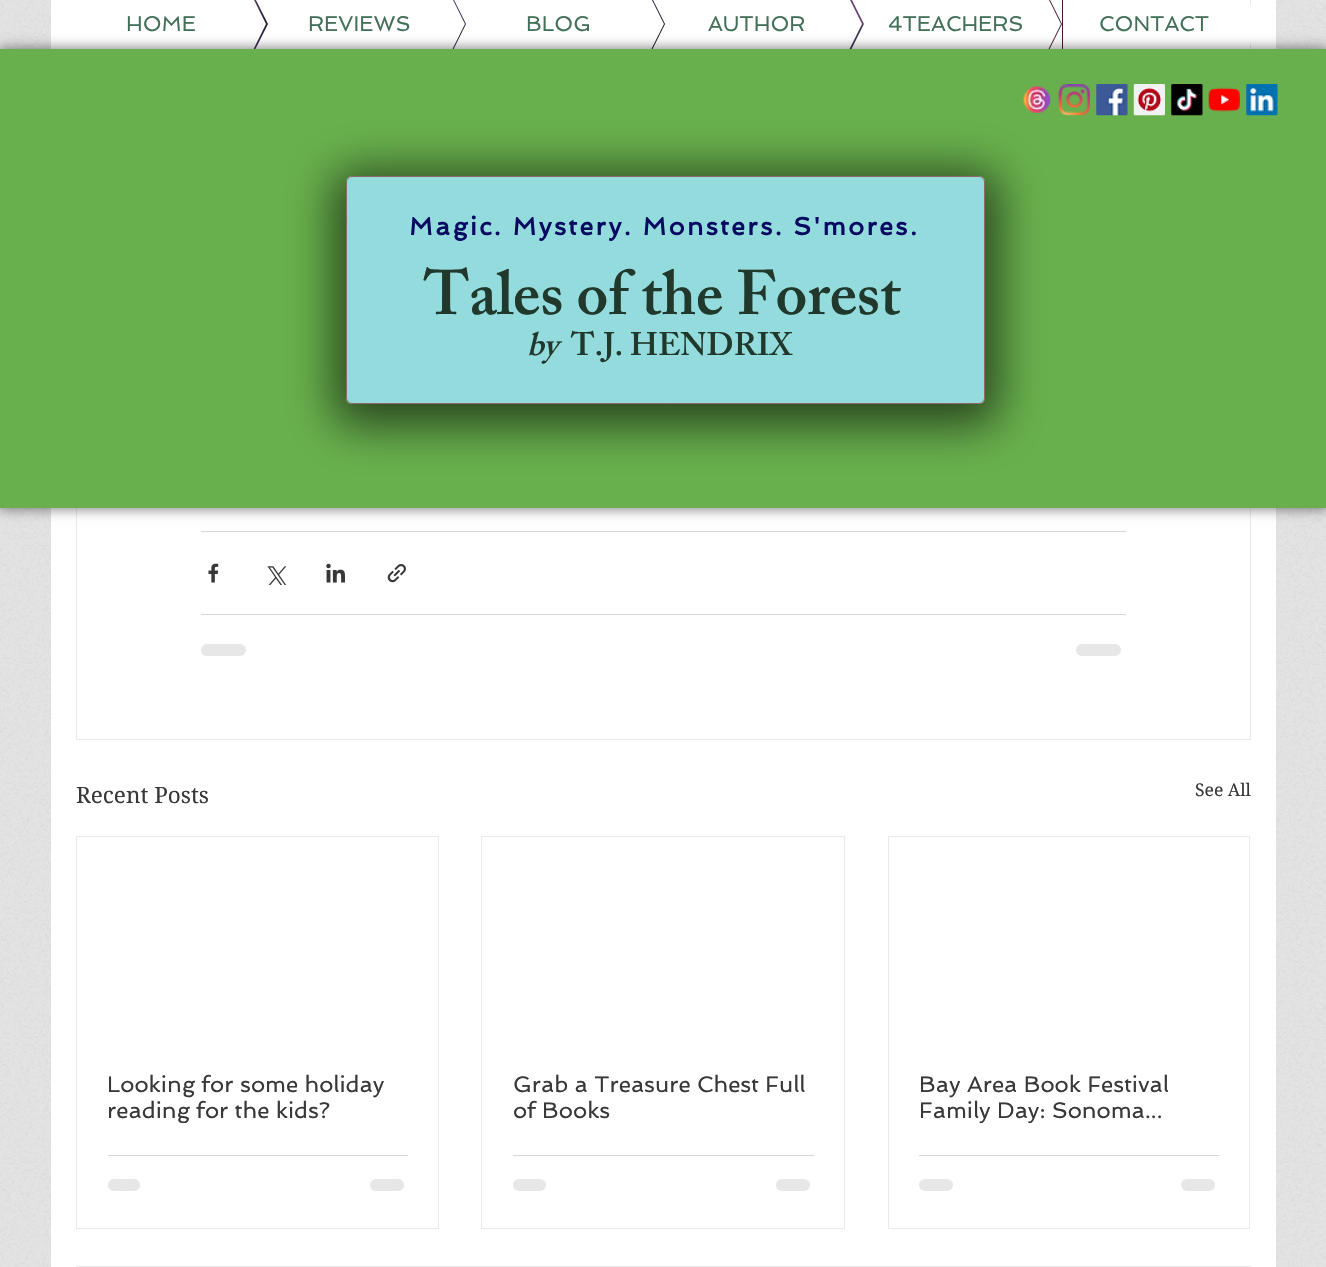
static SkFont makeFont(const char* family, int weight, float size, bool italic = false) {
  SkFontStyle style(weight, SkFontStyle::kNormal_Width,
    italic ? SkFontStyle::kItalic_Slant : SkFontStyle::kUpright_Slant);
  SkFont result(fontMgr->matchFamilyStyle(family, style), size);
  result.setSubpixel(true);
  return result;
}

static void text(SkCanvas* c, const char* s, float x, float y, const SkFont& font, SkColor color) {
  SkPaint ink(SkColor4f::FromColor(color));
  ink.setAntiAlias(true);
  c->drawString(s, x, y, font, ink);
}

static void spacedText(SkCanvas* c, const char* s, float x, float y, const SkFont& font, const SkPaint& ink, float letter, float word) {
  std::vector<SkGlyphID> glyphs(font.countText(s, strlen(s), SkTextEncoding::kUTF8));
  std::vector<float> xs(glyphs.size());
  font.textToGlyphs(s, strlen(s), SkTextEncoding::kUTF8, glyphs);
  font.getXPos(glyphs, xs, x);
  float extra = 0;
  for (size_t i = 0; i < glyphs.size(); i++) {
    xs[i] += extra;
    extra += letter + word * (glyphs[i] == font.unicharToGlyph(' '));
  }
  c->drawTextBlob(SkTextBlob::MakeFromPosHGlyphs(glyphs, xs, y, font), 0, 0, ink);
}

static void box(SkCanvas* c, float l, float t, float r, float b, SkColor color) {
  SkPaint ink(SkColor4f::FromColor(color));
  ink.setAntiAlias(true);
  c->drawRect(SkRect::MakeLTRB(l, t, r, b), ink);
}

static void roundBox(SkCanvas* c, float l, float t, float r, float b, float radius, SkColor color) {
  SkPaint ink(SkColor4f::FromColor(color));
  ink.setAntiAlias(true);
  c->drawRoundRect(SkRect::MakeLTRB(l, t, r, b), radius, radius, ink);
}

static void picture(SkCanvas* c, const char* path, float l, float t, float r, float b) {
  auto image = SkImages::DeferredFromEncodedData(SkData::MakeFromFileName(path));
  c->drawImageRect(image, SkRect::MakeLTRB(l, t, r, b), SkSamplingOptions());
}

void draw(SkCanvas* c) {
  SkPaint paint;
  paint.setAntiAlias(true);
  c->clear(0xffe3e3e3);
  picture(c, "img_01.png", 0, 0, 1326, 1267);
  box(c, 51, 0, 1276, 1267, 0xffffffff);
  paint.setStyle(SkPaint::kStroke_Style);
  paint.setStrokeWidth(1);
  paint.setColor(0xffeaeaea);
  c->drawRect(SkRect::MakeLTRB(76.5f, -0.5f, 1250.5f, 739.5f), paint);
  box(c, 76, 0, 77, 49, 0xffffffff);
  picture(c, "img_09.png", 253, 0, 1063, 49);
  paint.setStyle(SkPaint::kFill_Style);
  paint.setColor(0xffffffff);
  c->drawPath(SkPathBuilder().moveTo(266, 24).lineTo(179, 24).lineTo(179, -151).close().detach(), paint);
  c->drawPath(SkPathBuilder().moveTo(179, 24).lineTo(266, 24).lineTo(179, 199).close().detach(), paint);
  SkFont face1 = makeFont("Spinnaker", 400, 21.25f);
  text(c, "HOME", 126, 31, face1, 0xff437058);
  c->drawPath(SkPathBuilder().moveTo(180, -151).lineTo(268, -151).lineTo(268, 24).close().moveTo(268, 199).lineTo(180, 199).lineTo(268, 24).close().detach(), paint);
  box(c, 268, 0, 378, 49, 0xffffffff);
  c->drawPath(SkPathBuilder().moveTo(465, 24).lineTo(378, 24).lineTo(378, -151).close().detach(), paint);
  c->drawPath(SkPathBuilder().moveTo(378, 24).lineTo(465, 24).lineTo(378, 199).close().detach(), paint);
  text(c, "REVIEWS", 308, 31, face1, 0xff437058);
  c->drawPath(SkPathBuilder().moveTo(379, -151).lineTo(466, -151).lineTo(466, 24).close().moveTo(466, 199).lineTo(379, 199).lineTo(466, 24).close().detach(), paint);
  box(c, 466, 0, 576, 49, 0xffffffff);
  c->drawPath(SkPathBuilder().moveTo(664, 24).lineTo(576, 24).lineTo(576, -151).close().detach(), paint);
  c->drawPath(SkPathBuilder().moveTo(576, 24).lineTo(664, 24).lineTo(576, 199).close().detach(), paint);
  text(c, "BLOG", 526, 31, face1, 0xff437058);
  c->drawPath(SkPathBuilder().moveTo(578, -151).lineTo(665, -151).lineTo(665, 24).close().moveTo(665, 199).lineTo(578, 199).lineTo(665, 24).close().detach(), paint);
  box(c, 665, 0, 775, 49, 0xffffffff);
  c->drawPath(SkPathBuilder().moveTo(862, 24).lineTo(775, 24).lineTo(775, -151).close().detach(), paint);
  c->drawPath(SkPathBuilder().moveTo(775, 24).lineTo(862, 24).lineTo(775, 199).close().detach(), paint);
  text(c, "AUTHOR", 708, 31, face1, 0xff437058);
  c->drawPath(SkPathBuilder().moveTo(776, -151).lineTo(864, -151).lineTo(864, 24).close().moveTo(864, 199).lineTo(776, 199).lineTo(864, 24).close().detach(), paint);
  box(c, 864, 0, 974, 49, 0xffffffff);
  c->drawPath(SkPathBuilder().moveTo(1061, 24).lineTo(974, 24).lineTo(974, -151).close().detach(), paint);
  c->drawPath(SkPathBuilder().moveTo(974, 24).lineTo(1061, 24).lineTo(974, 199).close().detach(), paint);
  text(c, "4TEACHERS", 888, 31, face1, 0xff437058);
  c->drawPath(SkPathBuilder().moveTo(975, -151).lineTo(1062, -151).lineTo(1062, 24).close().moveTo(1062, 199).lineTo(975, 199).lineTo(1062, 24).close().detach(), paint);
  c->save();
  c->clipRect(SkRect::MakeLTRB(1173, 0, 1260, 49));
  c->drawPath(SkPathBuilder().moveTo(1260, 24).lineTo(1172, 24).lineTo(1172, -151).close().detach(), paint);
  c->drawPath(SkPathBuilder().moveTo(1172, 24).lineTo(1260, 24).lineTo(1172, 199).close().detach(), paint);
  c->restore();
  text(c, "CONTACT", 1099, 31, face1, 0xff437058);
  paint.setColor(0x80000000);
  paint.setMaskFilter(SkMaskFilter::MakeBlur(kNormal_SkBlurStyle, 6));
  c->drawRect(SkRect::MakeLTRB(-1, 48, 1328, 509), paint);
  paint.setMaskFilter(nullptr);
  box(c, 0, 49, 1326, 508, 0xff68b04d);
  c->save();
  c->clipPath(SkPathBuilder(SkPathFillType::kEvenOdd).moveTo(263, 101).lineTo(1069, 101).lineTo(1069, 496).lineTo(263, 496).close().moveTo(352, 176).lineTo(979, 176).cubicTo(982.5f, 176, 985, 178.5f, 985, 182).lineTo(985, 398).cubicTo(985, 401.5f, 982.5f, 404, 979, 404).lineTo(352, 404).cubicTo(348.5f, 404, 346, 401.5f, 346, 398).lineTo(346, 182).cubicTo(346, 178.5f, 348.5f, 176, 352, 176).close().detach(), true);
  paint.setColor(0x99000000);
  paint.setMaskFilter(SkMaskFilter::MakeBlur(kNormal_SkBlurStyle, 23));
  c->drawRoundRect(SkRect::MakeLTRB(333, 171, 999, 426), 20, 20, paint);
  paint.setMaskFilter(nullptr);
  c->restore();
  picture(c, "img_02.png", 1022, 85, 1051, 114);
  picture(c, "img_03.png", 1058, 84, 1090, 116);
  picture(c, "img_04.png", 1096, 84, 1128, 116);
  picture(c, "img_05.png", 1133, 84, 1165, 116);
  picture(c, "img_06.png", 1171, 84, 1203, 116);
  picture(c, "img_07.png", 1208, 87, 1240, 112);
  picture(c, "img_08.png", 1246, 84, 1278, 116);
  roundBox(c, 346, 176, 985, 404, 6, 0xe398dfed);
  paint.setStyle(SkPaint::kStroke_Style);
  paint.setColor(0x858b0000);
  c->drawRoundRect(SkRect::MakeLTRB(346.5f, 176.5f, 984.5f, 403.5f), 5.5f, 5.5f, paint);
  SkFont face2 = makeFont("Spinnaker", 700, 25);
  paint.setStyle(SkPaint::kFill_Style);
  paint.setColor(0xff060a61);
  spacedText(c, "Magic. Mystery. Monsters. S'mores.", 409, 235, face2, paint, 2.5f, 0);
  SkFont face3 = makeFont("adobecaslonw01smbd", 600, 62.5f);
  text(c, "Tales of the Forest", 424, 314, face3, 0xff21382c);
  SkFont face4 = makeFont("adobecaslonw01smbd", 600, 32.5f, true);
  text(c, "by", 527, 355, face4, 0xff21382c);
  SkFont face5 = makeFont("adobecaslonw01smbd", 600, 32.5f);
  text(c, "T.J. HENDRIX", 571, 355, face5, 0xff21382c);
  box(c, 201, 531, 1126, 532, 0xffd7d7d7);
  picture(c, "img_10.png", 208, 563, 219, 583);
  picture(c, "img_11.png", 267, 566, 286, 585);
  picture(c, "img_12.png", 326, 563, 345, 583);
  picture(c, "img_13.png", 387, 564, 406, 583);
  box(c, 201, 614, 1126, 615, 0xffd7d7d7);
  roundBox(c, 201, 644, 246, 656, 6, 0xffe7e7e7);
  roundBox(c, 1076, 644, 1121, 656, 6, 0xffe7e7e7);
  SkFont face6 = makeFont("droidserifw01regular", 400, 22.5f);
  text(c, "Recent Posts", 76, 803, face6, 0xff393838);
  SkFont face7 = makeFont("droidserifw01regular", 400, 17.5f);
  text(c, "See All", 1195, 796, face7, 0xff393838);
  paint.setStyle(SkPaint::kStroke_Style);
  paint.setColor(0xffeaeaea);
  c->drawRect(SkRect::MakeLTRB(76.5f, 836.5f, 438.5f, 1228.5f), paint);
  SkFont face8 = makeFont("Spinnaker", 400, 22.5f);
  text(c, "Looking for some holiday", 107, 1092, face8, 0xff393838);
  c->save();
  c->clipRect(SkRect::MakeLTRB(108, 1070, 408, 1123));
  text(c, "reading for the kids?", 107, 1118, face8, 0xff393838);
  c->restore();
  box(c, 108, 1155, 408, 1156, 0xffd7d7d7);
  roundBox(c, 108, 1179, 140, 1191, 6, 0xffe7e7e7);
  roundBox(c, 370, 1179, 404, 1191, 6, 0xffe7e7e7);
  c->drawRect(SkRect::MakeLTRB(481.5f, 836.5f, 844.5f, 1228.5f), paint);
  text(c, "Grab a Treasure Chest Full", 513, 1092, face8, 0xff393838);
  text(c, "of Books", 513, 1118, face8, 0xff393838);
  box(c, 513, 1155, 814, 1156, 0xffd7d7d7);
  roundBox(c, 513, 1179, 546, 1191, 6, 0xffe7e7e7);
  roundBox(c, 776, 1179, 810, 1191, 6, 0xffe7e7e7);
  c->drawRect(SkRect::MakeLTRB(888.5f, 836.5f, 1249.5f, 1228.5f), paint);
  text(c, "Bay Area Book Festival", 919, 1092, face8, 0xff393838);
  c->save();
  c->clipRect(SkRect::MakeLTRB(919, 1070, 1219, 1123));
  text(c, "Family Day: Sonoma...", 919, 1118, face8, 0xff393838);
  c->restore();
  box(c, 919, 1155, 1219, 1156, 0xffd7d7d7);
  roundBox(c, 919, 1179, 953, 1191, 6, 0xffe7e7e7);
  roundBox(c, 1181, 1179, 1215, 1191, 6, 0xffe7e7e7);
  c->drawRect(SkRect::MakeLTRB(76.5f, 1266.5f, 1250.5f, 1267.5f), paint);
}
